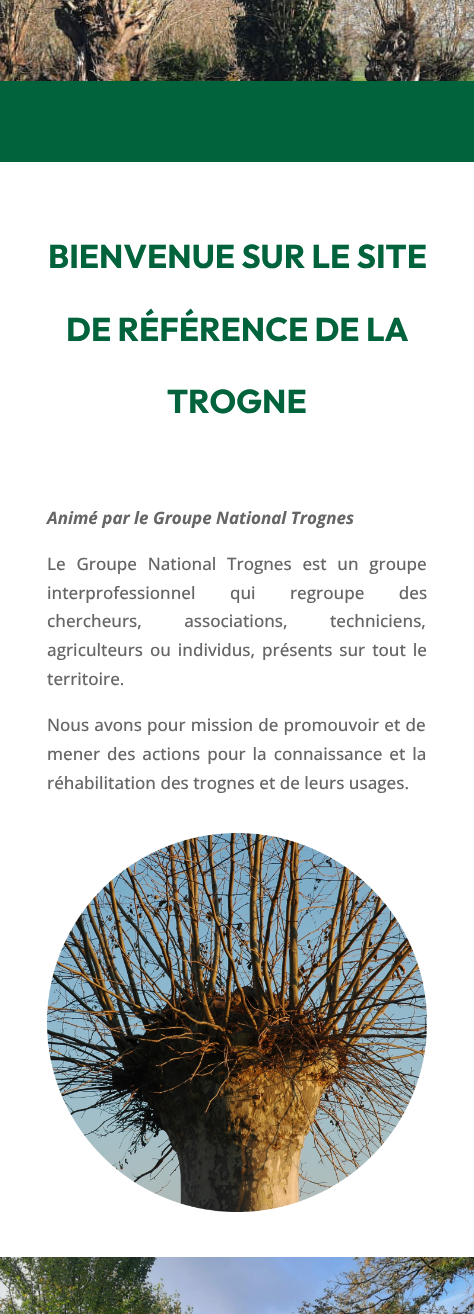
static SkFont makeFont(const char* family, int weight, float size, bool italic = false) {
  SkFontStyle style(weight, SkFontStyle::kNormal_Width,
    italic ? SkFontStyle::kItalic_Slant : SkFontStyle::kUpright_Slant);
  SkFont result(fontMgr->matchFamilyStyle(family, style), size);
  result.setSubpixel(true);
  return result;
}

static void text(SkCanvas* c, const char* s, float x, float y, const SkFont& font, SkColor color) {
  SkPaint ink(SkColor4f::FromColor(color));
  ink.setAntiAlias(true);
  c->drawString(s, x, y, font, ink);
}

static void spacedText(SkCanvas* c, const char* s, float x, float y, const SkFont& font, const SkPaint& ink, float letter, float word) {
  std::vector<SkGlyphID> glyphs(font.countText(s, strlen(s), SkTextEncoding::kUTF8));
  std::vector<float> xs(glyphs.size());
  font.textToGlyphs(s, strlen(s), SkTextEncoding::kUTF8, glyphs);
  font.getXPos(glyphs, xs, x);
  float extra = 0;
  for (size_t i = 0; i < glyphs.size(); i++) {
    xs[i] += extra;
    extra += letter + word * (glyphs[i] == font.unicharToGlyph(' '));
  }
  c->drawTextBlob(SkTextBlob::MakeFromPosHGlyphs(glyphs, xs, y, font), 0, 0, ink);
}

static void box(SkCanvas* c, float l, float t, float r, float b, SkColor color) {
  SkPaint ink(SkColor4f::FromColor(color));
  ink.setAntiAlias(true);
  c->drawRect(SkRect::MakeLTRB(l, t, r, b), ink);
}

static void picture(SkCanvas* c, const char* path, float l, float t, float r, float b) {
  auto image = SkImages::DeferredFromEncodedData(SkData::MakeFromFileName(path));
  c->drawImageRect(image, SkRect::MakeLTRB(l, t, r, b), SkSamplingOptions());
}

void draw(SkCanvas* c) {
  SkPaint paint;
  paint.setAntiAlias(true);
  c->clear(0xffffffff);
  picture(c, "img_01.png", 0, 0, 474, 81);
  box(c, 0, 81, 474, 162, 0xff00633b);
  SkFont face1 = makeFont("Outfit", 700, 33);
  text(c, "BIENVENUE SUR LE SITE", 48, 268, face1, 0xff00633b);
  text(c, "DE RÉFÉRENCE DE LA", 66, 341, face1, 0xff00633b);
  text(c, "TROGNE", 167, 413, face1, 0xff00633b);
  SkFont face2 = makeFont("Open Sans", 700, 17, true);
  text(c, "Animé par le Groupe National Trognes", 47, 524, face2, 0xff666666);
  SkFont face3 = makeFont("Open Sans", 500, 17);
  paint.setColor(0xff666666);
  spacedText(c, "Le Groupe National Trognes est un groupe", 47, 570, face3, paint, 0, 6.25f);
  spacedText(c, "interprofessionnel qui regroupe des", 47, 599, face3, paint, 0, 30);
  spacedText(c, "chercheurs, associations, techniciens,", 47, 627, face3, paint, 0, 38);
  spacedText(c, "agriculteurs ou individus, présents sur tout le", 47, 656, face3, paint, 0, 2.5f);
  text(c, "territoire.", 47, 685, face3, 0xff666666);
  spacedText(c, "Nous avons pour mission de promouvoir et de", 47, 731, face3, paint, 0, 0.75f);
  spacedText(c, "mener des actions pour la connaissance et la", 47, 760, face3, paint, 0, 2.5f);
  text(c, "réhabilitation des trognes et de leurs usages.", 47, 789, face3, 0xff666666);
  picture(c, "img_02.png", 47, 833, 427, 1212);
  picture(c, "img_03.png", 0, 1257, 474, 1314);
}
